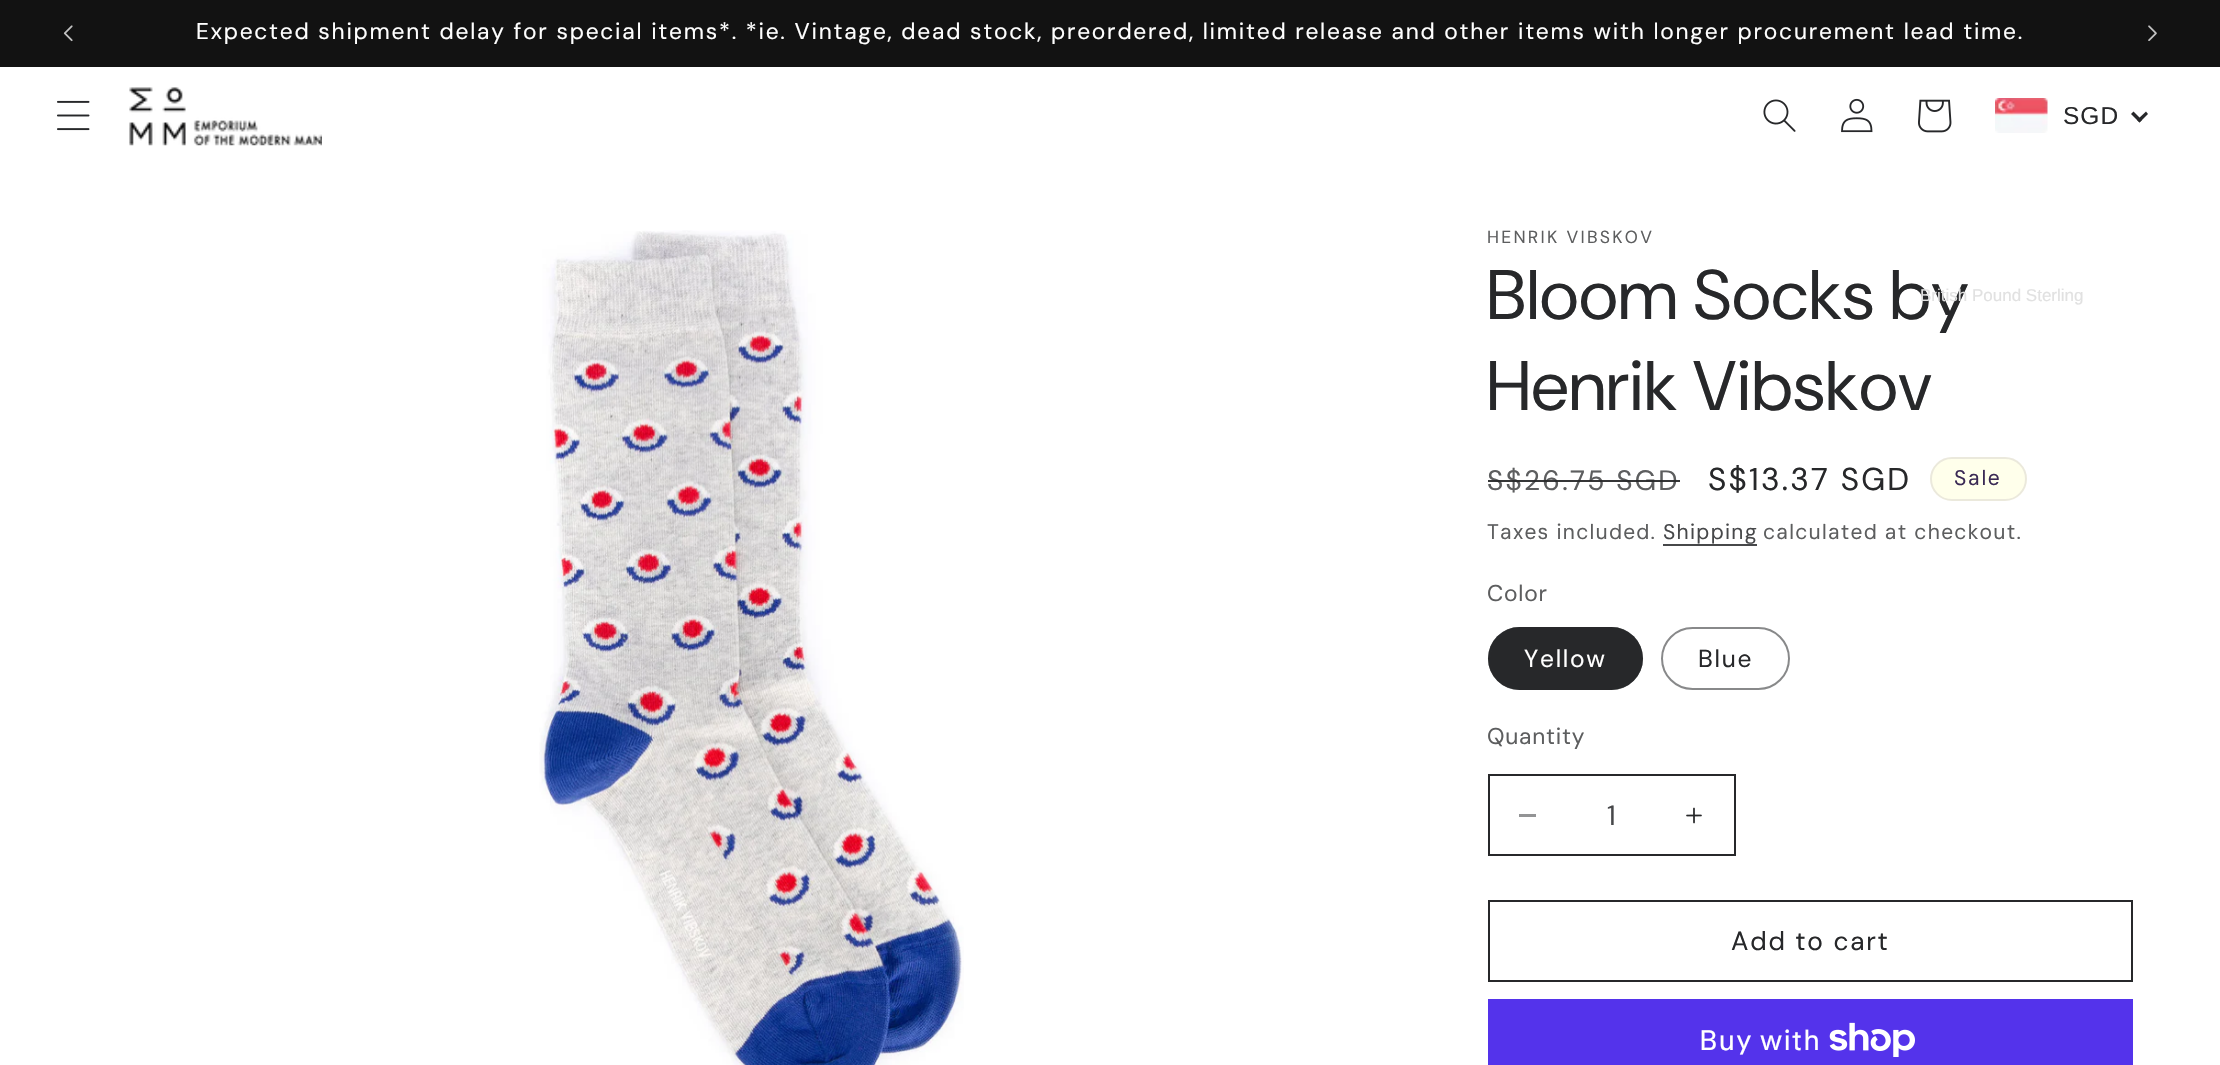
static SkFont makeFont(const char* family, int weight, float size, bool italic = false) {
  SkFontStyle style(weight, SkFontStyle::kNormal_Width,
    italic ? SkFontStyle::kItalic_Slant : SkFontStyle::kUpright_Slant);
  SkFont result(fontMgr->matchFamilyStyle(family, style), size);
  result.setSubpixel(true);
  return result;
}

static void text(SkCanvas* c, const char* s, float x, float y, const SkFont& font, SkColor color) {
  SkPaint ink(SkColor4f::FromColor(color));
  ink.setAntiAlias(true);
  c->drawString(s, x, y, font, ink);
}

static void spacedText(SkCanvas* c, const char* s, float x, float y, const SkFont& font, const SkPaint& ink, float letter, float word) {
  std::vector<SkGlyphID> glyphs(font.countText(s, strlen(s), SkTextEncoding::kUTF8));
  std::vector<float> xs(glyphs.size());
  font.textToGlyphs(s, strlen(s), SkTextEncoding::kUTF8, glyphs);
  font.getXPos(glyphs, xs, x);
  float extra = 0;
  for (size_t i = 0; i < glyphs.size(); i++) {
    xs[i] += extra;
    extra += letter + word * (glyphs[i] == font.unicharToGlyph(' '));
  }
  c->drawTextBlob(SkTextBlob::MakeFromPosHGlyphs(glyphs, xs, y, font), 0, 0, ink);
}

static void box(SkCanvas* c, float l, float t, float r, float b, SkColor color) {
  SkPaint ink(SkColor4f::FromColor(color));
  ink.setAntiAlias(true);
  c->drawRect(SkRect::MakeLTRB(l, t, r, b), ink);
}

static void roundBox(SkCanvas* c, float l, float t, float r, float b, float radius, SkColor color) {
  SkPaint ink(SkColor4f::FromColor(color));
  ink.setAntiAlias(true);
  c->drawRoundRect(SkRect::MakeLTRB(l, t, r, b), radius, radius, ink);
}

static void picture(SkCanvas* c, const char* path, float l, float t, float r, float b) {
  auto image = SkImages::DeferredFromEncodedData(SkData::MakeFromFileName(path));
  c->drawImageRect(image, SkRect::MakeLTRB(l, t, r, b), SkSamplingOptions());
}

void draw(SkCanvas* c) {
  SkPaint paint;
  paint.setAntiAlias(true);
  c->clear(0xffffffff);
  box(c, 0, 0, 2220, 67, 0xff121212);
  picture(c, "img_01.png", 63, 25, 73, 42);
  SkFont face1 = makeFont("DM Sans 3", 400, 22.75f);
  paint.setColor(0xffffffff);
  spacedText(c, "Expected shipment delay for special items*. *ie. Vintage, dead stock, preordered, limited release and other items with longer procurement lead time.", 196, 39, face1, paint, 1.75f, 0);
  picture(c, "img_02.png", 2148, 25, 2157, 41);
  picture(c, "img_03.png", 57, 100, 90, 131);
  picture(c, "img_04.png", 129, 87, 322, 146);
  picture(c, "img_05.png", 1763, 99, 1796, 132);
  picture(c, "img_06.png", 1841, 98, 1873, 133);
  picture(c, "img_07.png", 1918, 99, 1952, 133);
  picture(c, "img_08.png", 1995, 98, 2048, 133);
  SkFont face2 = makeFont("Liberation Sans", 400, 24.5f);
  paint.setColor(0xff27282a);
  spacedText(c, "SGD", 2063, 124, face2, paint, 1, 0);
  c->drawPath(SkPathBuilder().moveTo(2146, 111.5f).lineTo(2148, 114).lineTo(2139.5f, 122.5f).lineTo(2137, 120).close().detach(), paint);
  c->drawPath(SkPathBuilder().moveTo(2133.5f, 111.5f).lineTo(2142, 120).lineTo(2139.5f, 122.5f).lineTo(2131, 114).close().detach(), paint);
  SkFont face3 = makeFont("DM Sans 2", 400, 70);
  spacedText(c, "Bloom Socks by", 1487, 319, face3, paint, 1, 0);
  SkFont face4 = makeFont("Liberation Sans", 400, 17);
  text(c, "British Pound Sterling", 1920, 301, face4, 0xffe1e1e1);
  picture(c, "img_09.png", 539, 230, 964, 1065);
  SkFont face5 = makeFont("DM Sans", 400, 17.5f);
  paint.setColor(0xff5d5e5f);
  spacedText(c, "HENRIK VIBSKOV", 1487, 243, face5, paint, 2.25f, 0);
  paint.setColor(0xff27282a);
  spacedText(c, "Henrik Vibskov", 1487, 410, face3, paint, 1, 0);
  SkFont face6 = makeFont("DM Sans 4", 400, 28);
  paint.setColor(0xff5d5e5f);
  spacedText(c, "S$26.75 SGD", 1487, 490, face6, paint, 2.25f, 0);
  box(c, 1488, 480, 1680, 482, 0xbf27282a);
  box(c, 1488, 480, 1680, 482, 0xbf27282a);
  SkFont face7 = makeFont("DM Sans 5", 400, 31.5f);
  paint.setColor(0xff27282a);
  spacedText(c, "S$13.37 SGD", 1708, 490, face7, paint, 2.25f, 0);
  roundBox(c, 1930, 457, 2027, 501, 22, 0xffffffeb);
  paint.setStyle(SkPaint::kStroke_Style);
  paint.setStrokeWidth(2);
  paint.setColor(0x1a3b2a55);
  c->drawRoundRect(SkRect::MakeLTRB(1931, 458, 2026, 500), 21, 21, paint);
  SkFont face8 = makeFont("DM Sans", 400, 21);
  paint.setStyle(SkPaint::kFill_Style);
  paint.setColor(0xff3b2a55);
  spacedText(c, "Sale", 1954, 485, face8, paint, 1.75f, 0);
  paint.setColor(0xff5d5e5f);
  spacedText(c, "Taxes included.", 1487, 539, face8, paint, 1.25f, 0);
  paint.setColor(0xff47484a);
  spacedText(c, "Shipping", 1663, 539, face8, paint, 1.25f, 0);
  box(c, 1663, 544, 1757, 546, 0xff47484a);
  paint.setColor(0xff5d5e5f);
  spacedText(c, "calculated at checkout.", 1763, 539, face8, paint, 1.25f, 0);
  spacedText(c, "Color", 1487, 601, face1, paint, 0.75f, 0);
  roundBox(c, 1488, 627, 1643, 690, 31.5f, 0xff27282a);
  paint.setStyle(SkPaint::kStroke_Style);
  paint.setColor(0x8c27282a);
  c->drawRoundRect(SkRect::MakeLTRB(1489, 628, 1642, 689), 30.5f, 30.5f, paint);
  SkFont face9 = makeFont("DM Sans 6", 400, 24.5f);
  paint.setStyle(SkPaint::kFill_Style);
  paint.setColor(0xffffffff);
  spacedText(c, "Yellow", 1524, 667, face9, paint, 1.75f, 0);
  paint.setStyle(SkPaint::kStroke_Style);
  paint.setColor(0xff88898a);
  c->drawRoundRect(SkRect::MakeLTRB(1662, 628, 1789, 689), 30.5f, 30.5f, paint);
  paint.setStyle(SkPaint::kFill_Style);
  paint.setColor(0xff27282a);
  spacedText(c, "Blue", 1698, 667, face9, paint, 1.75f, 0);
  paint.setColor(0xff5d5e5f);
  spacedText(c, "Quantity", 1487, 744, face1, paint, 0.75f, 0);
  box(c, 1519, 814, 1536, 817, 0xff939495);
  picture(c, "img_10.png", 1686, 807, 1702, 824);
  paint.setStyle(SkPaint::kStroke_Style);
  paint.setColor(0xff27282a);
  c->drawRect(SkRect::MakeLTRB(1489, 775, 1735, 855), paint);
  text(c, "1", 1607, 825, face6, 0xff47484a);
  c->drawRect(SkRect::MakeLTRB(1489, 901, 2132, 981), paint);
  SkFont face10 = makeFont("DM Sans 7", 400, 26.25f);
  paint.setStyle(SkPaint::kFill_Style);
  spacedText(c, "Add to cart", 1731, 950, face10, paint, 1.75f, 0);
  box(c, 1488, 999, 2133, 1065, 0xff5433eb);
  SkFont face11 = makeFont("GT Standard", 400, 28);
  paint.setColor(0xffffffff);
  spacedText(c, "Buy with", 1699, 1050, face11, paint, 1, 0);
  picture(c, "img_11.png", 1829, 1022, 1915, 1057);
}
